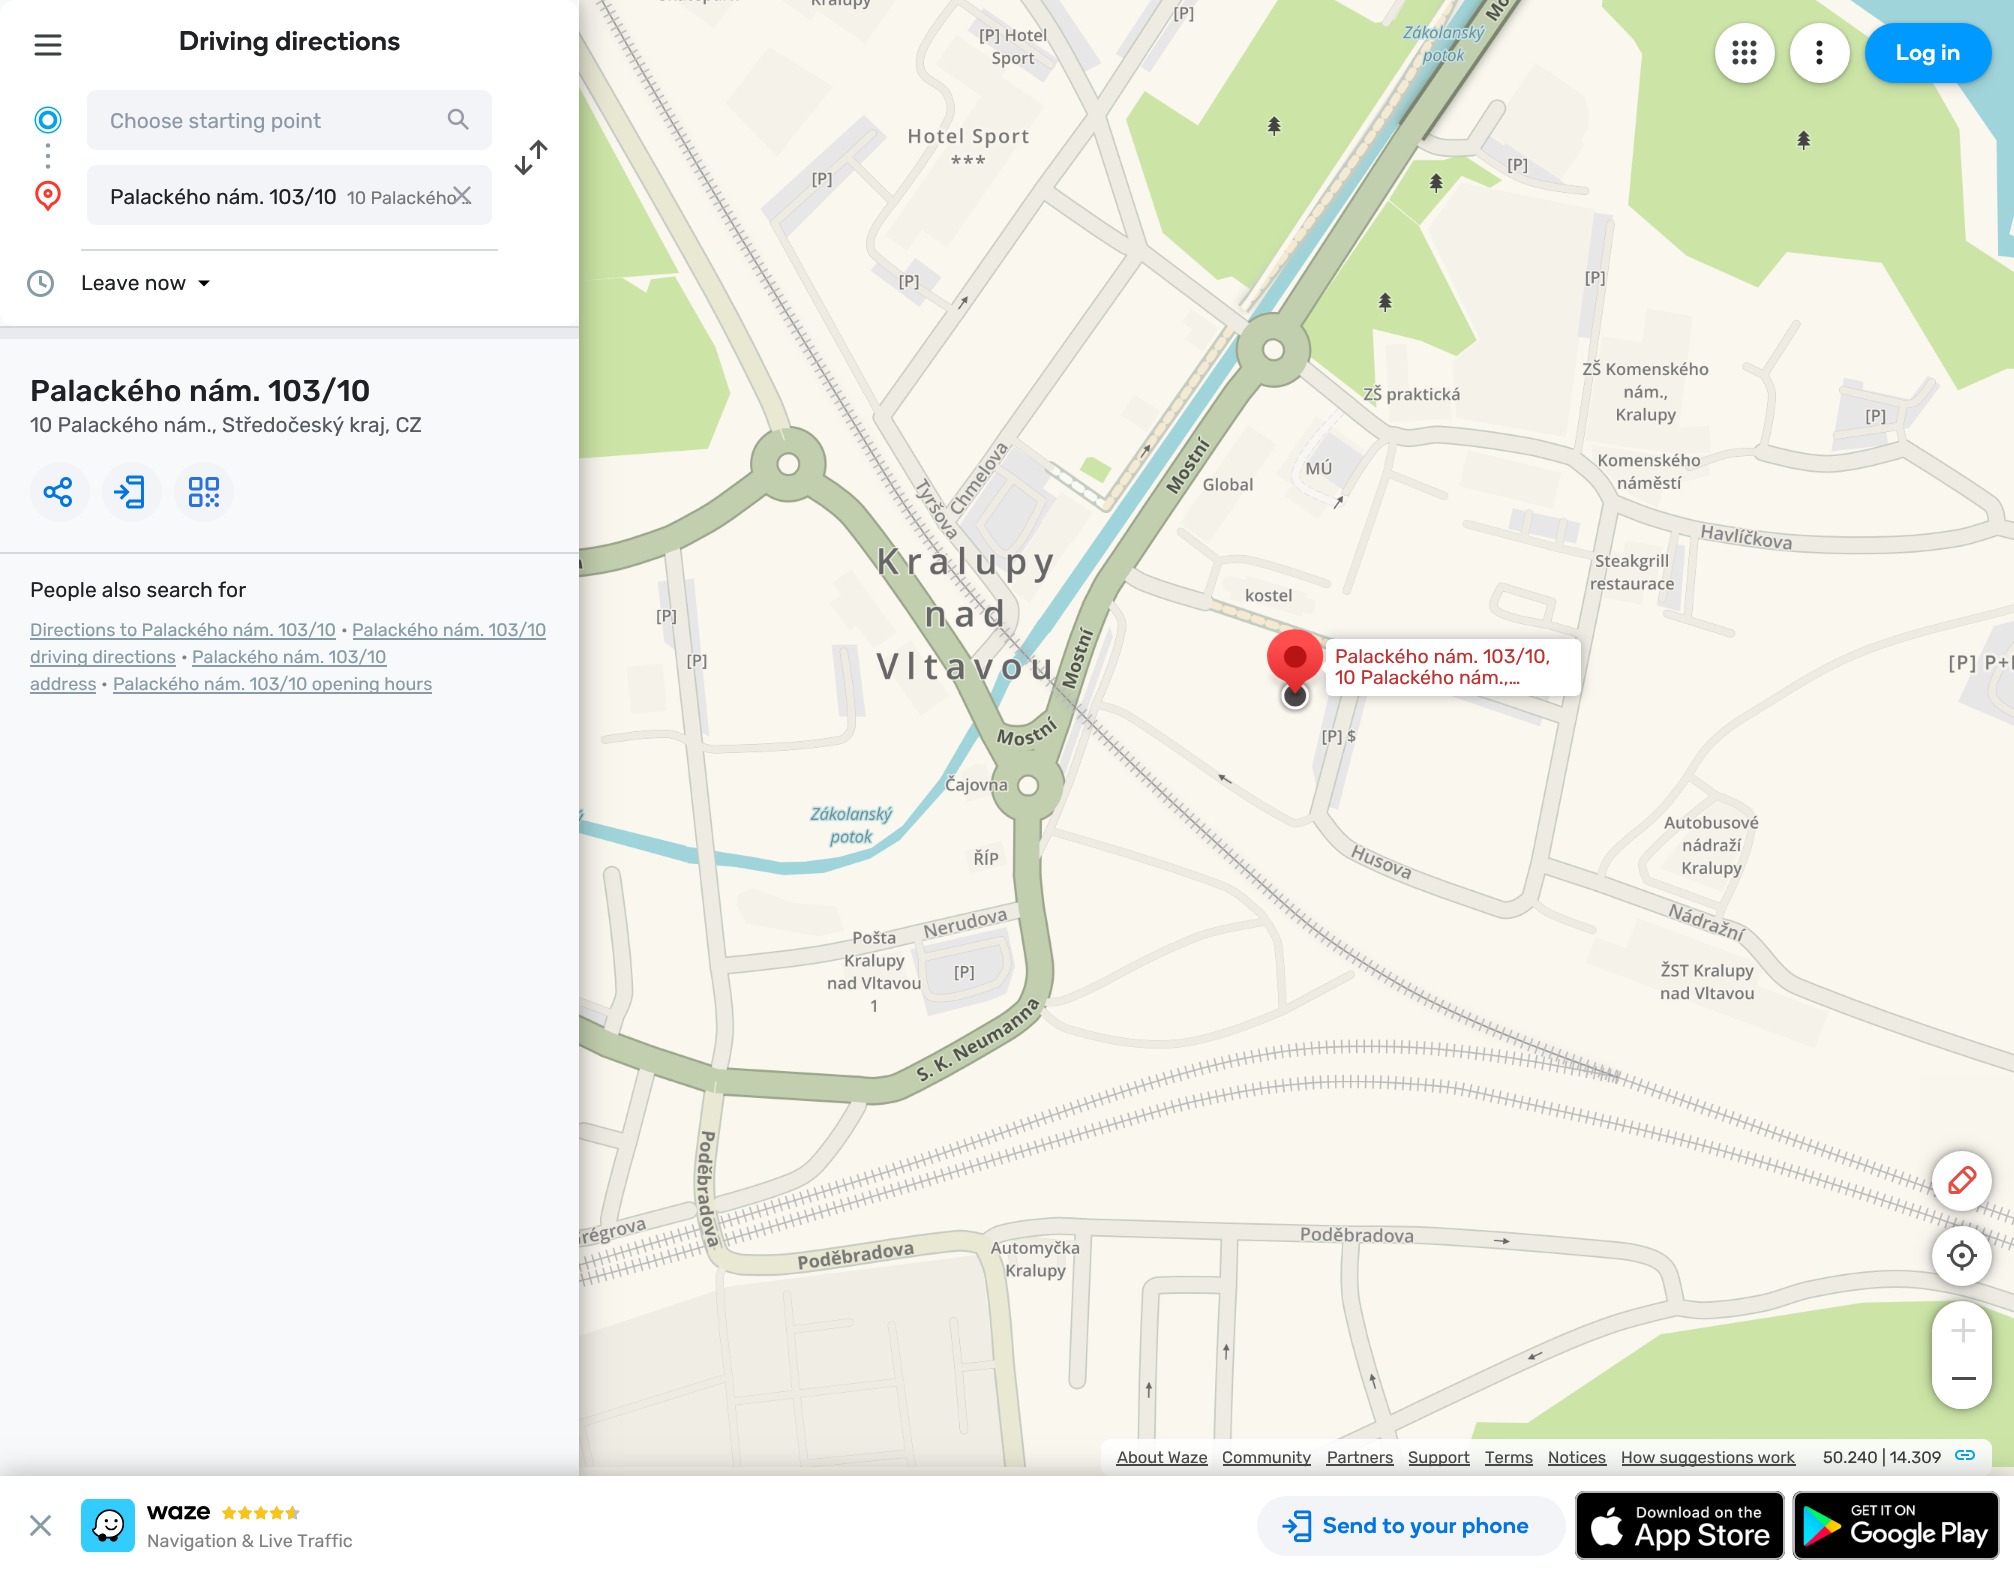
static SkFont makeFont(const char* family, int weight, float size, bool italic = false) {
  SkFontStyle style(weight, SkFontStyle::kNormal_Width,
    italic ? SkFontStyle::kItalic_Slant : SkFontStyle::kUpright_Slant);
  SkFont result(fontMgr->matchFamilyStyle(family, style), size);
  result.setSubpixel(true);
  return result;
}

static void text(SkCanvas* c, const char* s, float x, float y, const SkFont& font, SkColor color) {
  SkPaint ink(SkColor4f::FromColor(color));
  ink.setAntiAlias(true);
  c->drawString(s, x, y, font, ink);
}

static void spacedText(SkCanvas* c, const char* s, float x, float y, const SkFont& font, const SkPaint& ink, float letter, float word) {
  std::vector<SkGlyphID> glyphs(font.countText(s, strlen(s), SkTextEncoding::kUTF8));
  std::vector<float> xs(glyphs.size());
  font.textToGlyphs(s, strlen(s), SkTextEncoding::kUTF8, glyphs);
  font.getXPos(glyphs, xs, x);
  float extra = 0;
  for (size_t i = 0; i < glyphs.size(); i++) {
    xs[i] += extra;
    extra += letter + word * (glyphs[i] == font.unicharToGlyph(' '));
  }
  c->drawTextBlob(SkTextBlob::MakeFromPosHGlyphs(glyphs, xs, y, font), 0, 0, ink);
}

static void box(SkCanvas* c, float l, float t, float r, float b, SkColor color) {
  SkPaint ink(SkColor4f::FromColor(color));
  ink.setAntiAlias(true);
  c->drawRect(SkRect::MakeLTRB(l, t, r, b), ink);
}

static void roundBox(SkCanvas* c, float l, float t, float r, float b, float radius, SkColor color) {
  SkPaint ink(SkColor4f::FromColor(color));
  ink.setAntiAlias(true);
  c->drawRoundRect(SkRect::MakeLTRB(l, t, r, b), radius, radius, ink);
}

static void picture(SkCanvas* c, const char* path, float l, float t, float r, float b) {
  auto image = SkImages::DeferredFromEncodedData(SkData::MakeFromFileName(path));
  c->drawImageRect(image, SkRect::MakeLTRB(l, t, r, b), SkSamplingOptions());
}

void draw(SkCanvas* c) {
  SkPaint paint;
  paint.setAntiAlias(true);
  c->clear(0xfff9f6ed);
  picture(c, "img_11.png", 579, 0, 768, 315);
  picture(c, "img_16.png", 579, 315, 768, 699);
  picture(c, "img_21.png", 579, 699, 768, 1083);
  picture(c, "img_26.png", 579, 1083, 768, 1467);
  paint.setColor(0x1f000000);
  paint.setMaskFilter(SkMaskFilter::MakeBlur(kNormal_SkBlurStyle, 6));
  c->drawRect(SkRect::MakeLTRB(0, 3, 579, 1479), paint);
  paint.setMaskFilter(nullptr);
  paint.setColor(0x4d000000);
  paint.setMaskFilter(SkMaskFilter::MakeBlur(kNormal_SkBlurStyle, 15));
  c->drawRect(SkRect::MakeLTRB(0, 0, 579, 1476), paint);
  paint.setMaskFilter(nullptr);
  box(c, 0, 0, 579, 1476, 0xfff8f9fa);
  paint.setColor(0xffffffff);
  c->drawPath(SkPathBuilder().moveTo(15, 0).lineTo(564, 0).cubicTo(572.5f, 0, 579, 6.5f, 579, 15).lineTo(579, 90).lineTo(0, 90).lineTo(0, 15).cubicTo(0, 6.5f, 6.5f, 0, 15, 0).close().detach(), paint);
  picture(c, "img_01.png", 34, 34, 62, 56);
  SkFont face1 = makeFont("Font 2", 500, 27);
  paint.setColor(0xff202124);
  spacedText(c, "Driving directions", 179, 50, face1, paint, 0.5f, 0);
  box(c, 0, 90, 579, 249, 0xffffffff);
  paint.setColor(0xff869ca7);
  c->drawCircle(48, 145.5f, 2.2f, paint);
  c->drawCircle(48, 156, 2.2f, paint);
  c->drawCircle(48, 166.5f, 2.2f, paint);
  picture(c, "img_02.png", 34, 106, 62, 134);
  roundBox(c, 87, 90, 492, 150, 9, 0xfff2f4f7);
  SkFont face2 = makeFont("Rubik", 400, 21);
  text(c, "Choose starting point", 110, 128, face2, 0xff8b98a5);
  picture(c, "img_03.png", 447, 108, 469, 130);
  picture(c, "img_04.png", 514, 139, 548, 176);
  picture(c, "img_05.png", 35, 180, 61, 211);
  roundBox(c, 87, 165, 492, 225, 9, 0xfff2f4f7);
  SkFont face3 = makeFont("Rubik", 400, 18);
  text(c, "10 Palackého …", 347, 204, face3, 0xff777777);
  picture(c, "img_06.png", 453, 186, 471, 204);
  text(c, "Palackého nám. 103/10", 110, 204, face2, 0xff202124);
  paint.setColor(0xffffffff);
  c->drawPath(SkPathBuilder().moveTo(0, 249).lineTo(579, 249).lineTo(579, 311).cubicTo(579, 319.5f, 572.5f, 326, 564, 326).lineTo(15, 326).cubicTo(6.5f, 326, 0, 319.5f, 0, 311).close().detach(), paint);
  box(c, 81, 249, 498, 251, 0xffd3dae0);
  picture(c, "img_07.png", 27, 270, 54, 297);
  text(c, "Leave now", 81, 290, face2, 0xff202124);
  paint.setColor(0xff000000);
  c->drawPath(SkPathBuilder().moveTo(198, 280.5f).lineTo(210, 280.5f).lineTo(204, 286.5f).close().detach(), paint);
  box(c, 0, 326, 579, 328, 0xffd5d7db);
  box(c, 0, 328, 579, 339, 0xffe8eaed);
  SkFont face4 = makeFont("Rubik", 500, 30);
  paint.setColor(0xff202124);
  spacedText(c, "Palackého nám. 103/10", 30, 401, face4, paint, 0.25f, 0);
  text(c, "10 Palackého nám., Středočeský kraj, CZ", 30, 432, face2, 0xff55595e);
  paint.setColor(0xfff2f4f7);
  c->drawCircle(60, 492, 30, paint);
  picture(c, "img_08.png", 43, 477, 72, 507);
  c->drawCircle(132, 492, 30, paint);
  picture(c, "img_09.png", 114, 475, 144, 509);
  c->drawCircle(204, 492, 30, paint);
  picture(c, "img_10.png", 189, 477, 219, 507);
  box(c, 0, 552, 579, 554, 0xffd3dae0);
  text(c, "People also search for", 30, 597, face2, 0xff202124);
  text(c, "Directions to Palackého nám. 103/10", 30, 636, face3, 0xff859ba6);
  box(c, 30, 638, 336, 640, 0xff859ba6);
  text(c, "•", 341, 636, face3, 0xff818181);
  text(c, "Palackého nám. 103/10", 352, 636, face3, 0xff859ba6);
  box(c, 353, 638, 546, 640, 0xff859ba6);
  box(c, 30, 665, 176, 667, 0xff859ba6);
  text(c, "driving directions", 30, 663, face3, 0xff859ba6);
  text(c, "•", 181, 663, face3, 0xff818181);
  text(c, "Palackého nám. 103/10", 192, 663, face3, 0xff859ba6);
  box(c, 192, 665, 387, 667, 0xff859ba6);
  text(c, "address", 30, 690, face3, 0xff859ba6);
  box(c, 30, 692, 96, 694, 0xff859ba6);
  text(c, "•", 101, 690, face3, 0xff818181);
  box(c, 113, 692, 432, 694, 0xff859ba6);
  text(c, "Palackého nám. 103/10 opening hours", 113, 690, face3, 0xff859ba6);
  picture(c, "img_12.png", 768, 0, 1152, 315);
  picture(c, "img_13.png", 1152, 0, 1536, 315);
  picture(c, "img_14.png", 1536, 0, 1920, 315);
  picture(c, "img_15.png", 1920, 0, 2014, 315);
  picture(c, "img_17.png", 768, 315, 1152, 699);
  picture(c, "img_18.png", 1152, 315, 1536, 699);
  picture(c, "img_19.png", 1536, 315, 1920, 699);
  picture(c, "img_20.png", 1920, 315, 2014, 699);
  picture(c, "img_22.png", 768, 699, 1152, 1083);
  picture(c, "img_23.png", 1152, 699, 1536, 1083);
  picture(c, "img_24.png", 1536, 699, 1920, 1083);
  picture(c, "img_25.png", 1920, 699, 2014, 1073);
  picture(c, "img_27.png", 768, 1083, 1152, 1467);
  picture(c, "img_28.png", 1152, 1083, 1536, 1467);
  picture(c, "img_29.png", 1536, 1083, 1920, 1467);
  picture(c, "img_30.png", 1920, 1179, 2014, 1467);
  paint.setColor(0x4d000000);
  paint.setMaskFilter(SkMaskFilter::MakeBlur(kNormal_SkBlurStyle, 6));
  c->drawRoundRect(SkRect::MakeLTRB(1326, 639, 1581, 696), 6, 6, paint);
  paint.setMaskFilter(nullptr);
  paint.setColor(0xffffffff);
  c->drawPath(SkPathBuilder().moveTo(1326, 661.5f).lineTo(1326, 673.5f).lineTo(1320, 667.5f).close().detach(), paint);
  picture(c, "img_31.png", 1267, 629, 1325, 715);
  roundBox(c, 1326, 639, 1581, 696, 6, 0xffffffff);
  SkFont face5 = makeFont("Rubik", 400, 19.5f);
  text(c, "Palackého nám. 103/10,", 1335, 663, face5, 0xffc03131);
  text(c, "10 Palackého nám.,…", 1335, 684, face5, 0xffc03131);
  paint.setColor(0x4d000000);
  paint.setMaskFilter(SkMaskFilter::MakeBlur(kNormal_SkBlurStyle, 7.5f));
  c->drawRoundRect(SkRect::MakeLTRB(1932, 1151, 1992, 1211), 30, 30, paint);
  paint.setMaskFilter(nullptr);
  paint.setMaskFilter(SkMaskFilter::MakeBlur(kNormal_SkBlurStyle, 3));
  c->drawRoundRect(SkRect::MakeLTRB(1932, 1151, 1992, 1211), 30, 30, paint);
  paint.setMaskFilter(nullptr);
  paint.setColor(0xffffffff);
  c->drawCircle(1962, 1181, 30, paint);
  picture(c, "img_32.png", 1948, 1165, 1977, 1195);
  paint.setColor(0x4d000000);
  paint.setMaskFilter(SkMaskFilter::MakeBlur(kNormal_SkBlurStyle, 7.5f));
  c->drawRoundRect(SkRect::MakeLTRB(1932, 1226, 1992, 1286), 30, 30, paint);
  paint.setMaskFilter(nullptr);
  paint.setMaskFilter(SkMaskFilter::MakeBlur(kNormal_SkBlurStyle, 3));
  c->drawRoundRect(SkRect::MakeLTRB(1932, 1226, 1992, 1286), 30, 30, paint);
  paint.setMaskFilter(nullptr);
  paint.setColor(0xffffffff);
  c->drawCircle(1962, 1256, 30, paint);
  picture(c, "img_33.png", 1947, 1240, 1977, 1271);
  paint.setColor(0x4d000000);
  paint.setMaskFilter(SkMaskFilter::MakeBlur(kNormal_SkBlurStyle, 7.5f));
  c->drawRoundRect(SkRect::MakeLTRB(1932, 1301, 1992, 1409), 30, 30, paint);
  paint.setMaskFilter(nullptr);
  paint.setMaskFilter(SkMaskFilter::MakeBlur(kNormal_SkBlurStyle, 3));
  c->drawRoundRect(SkRect::MakeLTRB(1932, 1301, 1992, 1409), 30, 30, paint);
  paint.setMaskFilter(nullptr);
  roundBox(c, 1932, 1301, 1992, 1409, 30, 0xffffffff);
  picture(c, "img_34.png", 1951, 1318, 1976, 1343);
  paint.setColor(0xffffffff);
  c->drawPath(SkPathBuilder().moveTo(1932, 1355).lineTo(1992, 1355).lineTo(1992, 1379).cubicTo(1992, 1395.5f, 1978.5f, 1409, 1962, 1409).cubicTo(1945.5f, 1409, 1932, 1395.5f, 1932, 1379).close().detach(), paint);
  box(c, 1952, 1377, 1976, 1380, 0xff4c4c4c);
  roundBox(c, 1101, 1439, 1992, 1476, 9, 0xe6ffffff);
  SkFont face6 = makeFont("Rubik", 400, 16.5f);
  text(c, "About Waze", 1117, 1463, face6, 0xff4c4c4c);
  box(c, 1116, 1464, 1208, 1466, 0xff4c4c4c);
  box(c, 1223, 1464, 1311, 1466, 0xff4c4c4c);
  text(c, "Community", 1222, 1463, face6, 0xff4c4c4c);
  text(c, "Partners", 1327, 1463, face6, 0xff4c4c4c);
  box(c, 1326, 1464, 1394, 1466, 0xff4c4c4c);
  box(c, 1409, 1464, 1470, 1466, 0xff4c4c4c);
  text(c, "Support", 1408, 1463, face6, 0xff4c4c4c);
  text(c, "Terms", 1485, 1463, face6, 0xff4c4c4c);
  box(c, 1485, 1464, 1533, 1466, 0xff4c4c4c);
  text(c, "Notices", 1548, 1463, face6, 0xff4c4c4c);
  box(c, 1548, 1464, 1607, 1466, 0xff4c4c4c);
  box(c, 1622, 1464, 1796, 1466, 0xff4c4c4c);
  text(c, "How suggestions work", 1621, 1463, face6, 0xff4c4c4c);
  text(c, "50.240 | 14.309", 1823, 1463, face6, 0xff3d3d3d);
  picture(c, "img_35.png", 1955, 1450, 1975, 1460);
  paint.setColor(0x263c4043);
  paint.setMaskFilter(SkMaskFilter::MakeBlur(kNormal_SkBlurStyle, 6));
  c->drawRoundRect(SkRect::MakeLTRB(1715, 29, 1775, 89), 30, 30, paint);
  paint.setMaskFilter(nullptr);
  paint.setColor(0x4d000000);
  paint.setMaskFilter(SkMaskFilter::MakeBlur(kNormal_SkBlurStyle, 2));
  c->drawRoundRect(SkRect::MakeLTRB(1715, 24, 1775, 84), 30, 30, paint);
  paint.setMaskFilter(nullptr);
  paint.setColor(0xffffffff);
  c->drawCircle(1745, 53, 28.5f, paint);
  paint.setStyle(SkPaint::kStroke_Style);
  paint.setStrokeWidth(3);
  c->drawCircle(1745, 53, 28.5f, paint);
  picture(c, "img_36.png", 1732, 40, 1757, 65);
  paint.setStyle(SkPaint::kFill_Style);
  paint.setColor(0x263c4043);
  paint.setMaskFilter(SkMaskFilter::MakeBlur(kNormal_SkBlurStyle, 6));
  c->drawRoundRect(SkRect::MakeLTRB(1790, 29, 1850, 89), 30, 30, paint);
  paint.setMaskFilter(nullptr);
  paint.setColor(0x4d000000);
  paint.setMaskFilter(SkMaskFilter::MakeBlur(kNormal_SkBlurStyle, 2));
  c->drawRoundRect(SkRect::MakeLTRB(1790, 24, 1850, 84), 30, 30, paint);
  paint.setMaskFilter(nullptr);
  paint.setColor(0xffffffff);
  c->drawCircle(1820, 53, 28.5f, paint);
  paint.setStyle(SkPaint::kStroke_Style);
  c->drawCircle(1820, 53, 28.5f, paint);
  picture(c, "img_37.png", 1816, 40, 1823, 65);
  paint.setStyle(SkPaint::kFill_Style);
  paint.setColor(0x263c4043);
  paint.setMaskFilter(SkMaskFilter::MakeBlur(kNormal_SkBlurStyle, 6));
  c->drawRoundRect(SkRect::MakeLTRB(1865, 29, 1992, 89), 30, 30, paint);
  paint.setMaskFilter(nullptr);
  paint.setColor(0x4d000000);
  paint.setMaskFilter(SkMaskFilter::MakeBlur(kNormal_SkBlurStyle, 2));
  c->drawRoundRect(SkRect::MakeLTRB(1865, 24, 1992, 84), 30, 30, paint);
  paint.setMaskFilter(nullptr);
  roundBox(c, 1865, 23, 1992, 83, 30, 0xff0099ff);
  SkFont face7 = makeFont("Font", 500, 22.5f);
  paint.setColor(0xffffffff);
  spacedText(c, "Log in", 1896, 60, face7, paint, 0.5f, 0);
  paint.setColor(0x4d000000);
  paint.setMaskFilter(SkMaskFilter::MakeBlur(kNormal_SkBlurStyle, 13.5f));
  c->drawRect(SkRect::MakeLTRB(0, 1476, 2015, 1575), paint);
  paint.setMaskFilter(nullptr);
  box(c, 0, 1476, 2014, 1574, 0xffffffff);
  picture(c, "img_38.png", 29, 1514, 52, 1537);
  roundBox(c, 1257, 1496, 1566, 1556, 30, 0xfff2f4f7);
  picture(c, "img_39.png", 1282, 1510, 1312, 1543);
  paint.setColor(0xff0075e3);
  spacedText(c, "Send to your phone", 1323, 1533, face7, paint, 0.5f, 0);
  picture(c, "img_40.png", 1575, 1491, 1785, 1560);
  paint.setStyle(SkPaint::kStroke_Style);
  paint.setStrokeWidth(2);
  paint.setColor(0xffb7b7b7);
  c->drawRoundRect(SkRect::MakeLTRB(1576, 1492, 1784, 1559), 8, 8, paint);
  picture(c, "img_41.png", 1792, 1491, 2000, 1560);
  c->drawRoundRect(SkRect::MakeLTRB(1794, 1492, 1999, 1559), 8, 8, paint);
  picture(c, "img_42.png", 81, 1499, 135, 1553);
  picture(c, "img_43.png", 147, 1506, 210, 1520);
  picture(c, "img_44.png", 222, 1506, 300, 1520);
  text(c, "Navigation & Live Traffic", 147, 1547, face3, 0xff818181);
}
